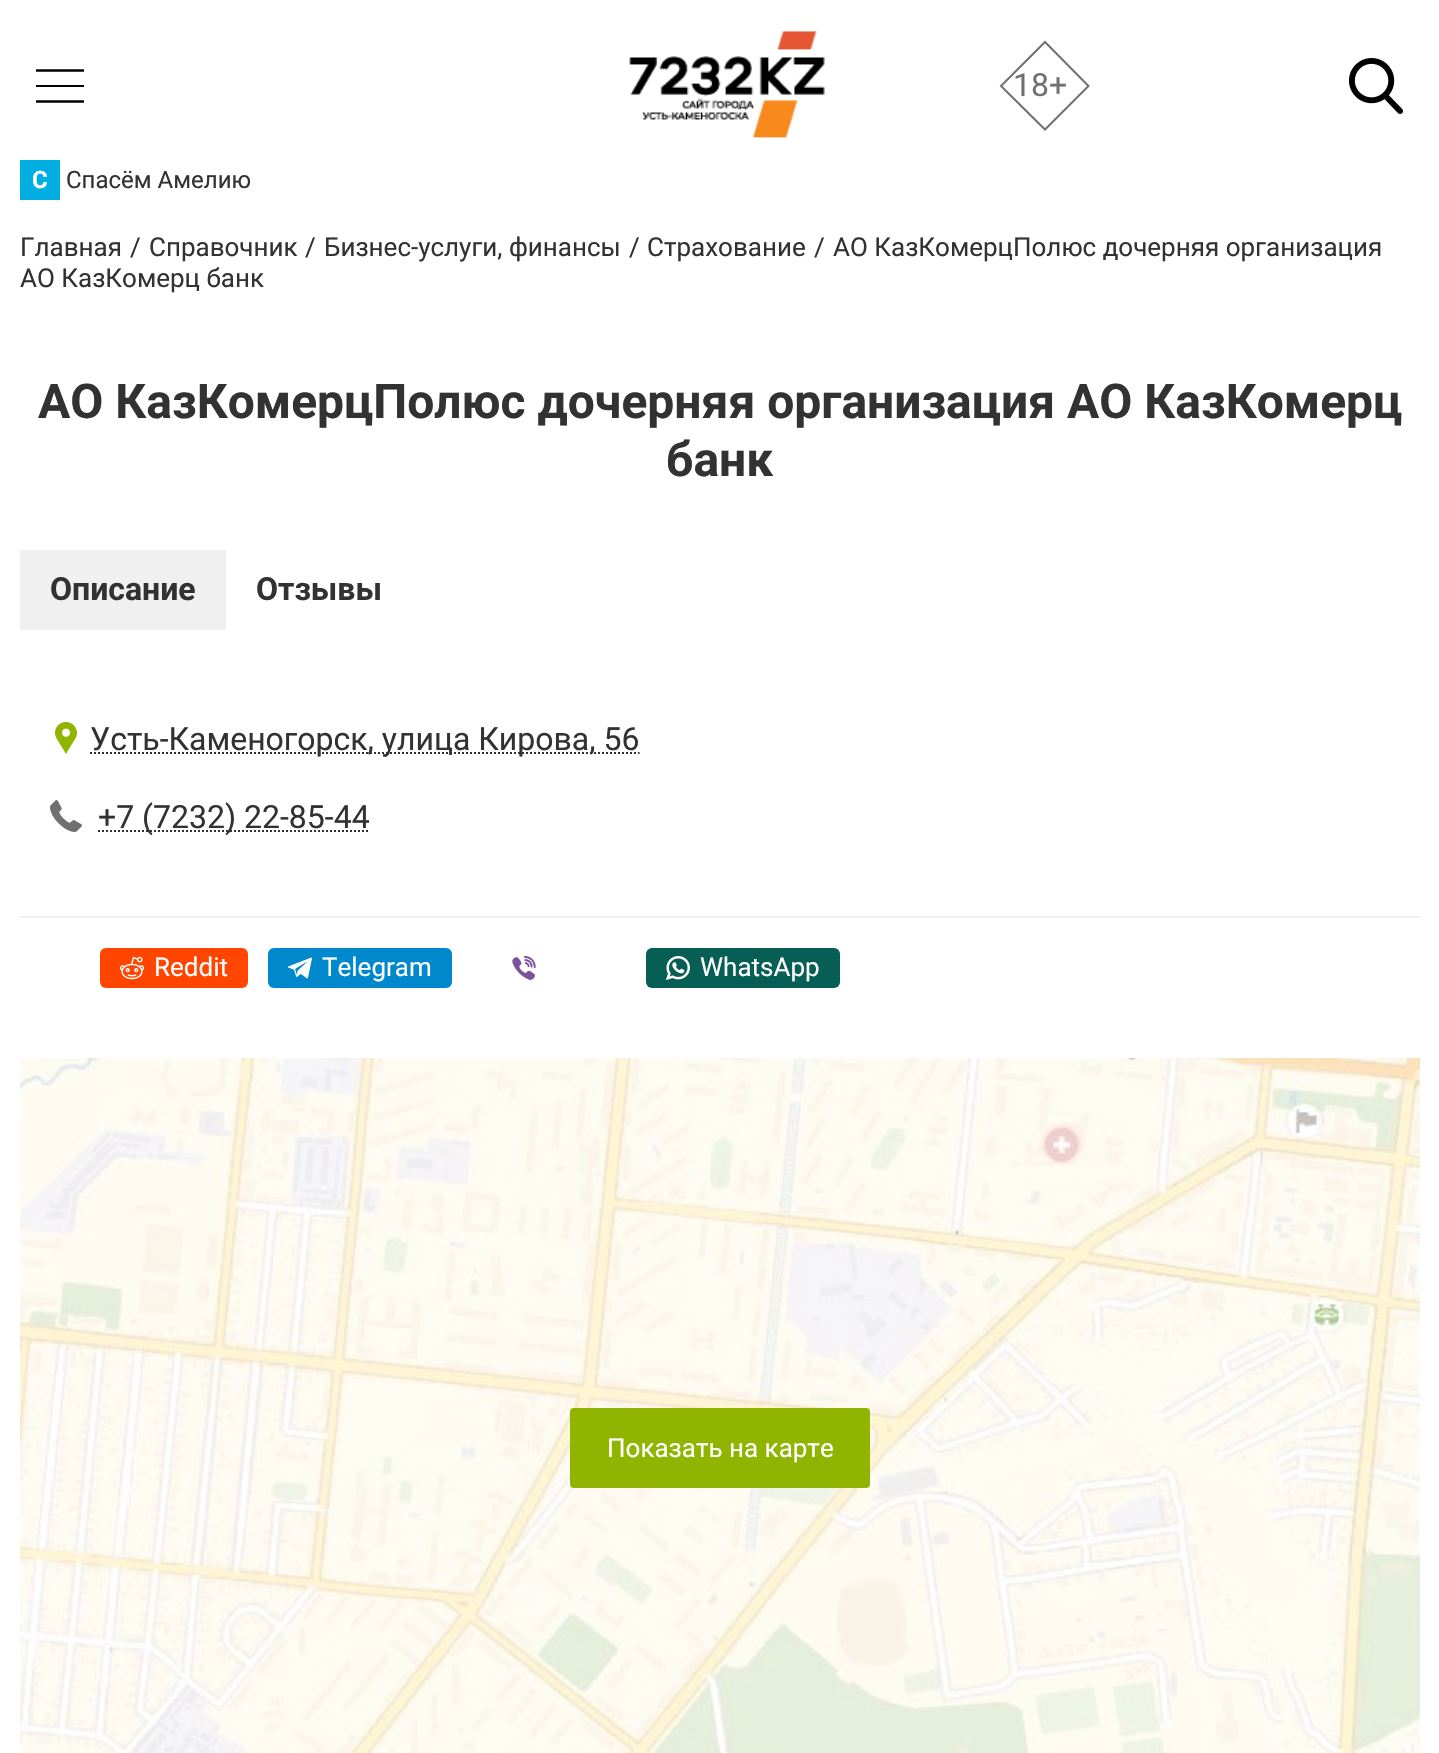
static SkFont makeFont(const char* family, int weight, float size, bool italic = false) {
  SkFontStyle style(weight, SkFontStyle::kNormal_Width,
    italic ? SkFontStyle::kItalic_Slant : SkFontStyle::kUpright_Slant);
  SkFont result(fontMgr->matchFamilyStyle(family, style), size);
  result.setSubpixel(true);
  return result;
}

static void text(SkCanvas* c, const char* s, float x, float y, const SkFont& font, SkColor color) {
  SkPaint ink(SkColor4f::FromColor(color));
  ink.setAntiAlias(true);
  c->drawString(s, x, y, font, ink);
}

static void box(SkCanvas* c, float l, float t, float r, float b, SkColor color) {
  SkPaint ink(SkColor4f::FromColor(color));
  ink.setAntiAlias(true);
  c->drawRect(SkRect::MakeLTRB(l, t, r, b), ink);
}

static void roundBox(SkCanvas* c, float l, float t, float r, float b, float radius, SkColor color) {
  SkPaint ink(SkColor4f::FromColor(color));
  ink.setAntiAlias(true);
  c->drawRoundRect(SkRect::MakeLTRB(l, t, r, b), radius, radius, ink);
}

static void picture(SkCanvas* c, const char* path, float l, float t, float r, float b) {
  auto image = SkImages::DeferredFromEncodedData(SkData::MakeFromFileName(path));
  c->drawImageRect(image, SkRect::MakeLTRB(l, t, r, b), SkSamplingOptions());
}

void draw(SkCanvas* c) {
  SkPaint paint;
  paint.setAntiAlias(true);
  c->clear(0xffffffff);
  paint.setStyle(SkPaint::kStroke_Style);
  paint.setStrokeWidth(2.4f);
  paint.setColor(0xff000000);
  c->drawPath(SkPathBuilder().moveTo(36, 70.5f).lineTo(84, 70.5f).detach(), paint);
  box(c, 36, 85, 84, 87, 0xff000000);
  c->drawPath(SkPathBuilder().moveTo(36, 101.5f).lineTo(84, 101.5f).detach(), paint);
  picture(c, "img_01.png", 629, 31, 825, 138);
  paint.setStrokeWidth(2);
  paint.setColor(0xff707070);
  c->drawPath(SkPathBuilder().moveTo(1045, 42).lineTo(1088.5f, 86).lineTo(1045, 129.5f).lineTo(1001, 86).close().detach(), paint);
  SkFont face1 = makeFont("Roboto", 400, 32);
  text(c, "18+", 1013, 96, face1, 0xff707070);
  picture(c, "img_02.png", 1349, 58, 1403, 114);
  box(c, 20, 160, 60, 200, 0xff00afe1);
  SkFont face2 = makeFont("Roboto", 700, 24);
  text(c, "С", 32, 188, face2, 0xffffffff);
  SkFont face3 = makeFont("Roboto", 400, 24);
  text(c, "Спасём Амелию", 66, 188, face3, 0xff323232);
  SkFont face4 = makeFont("Roboto", 400, 26);
  text(c, "Главная", 20, 256, face4, 0xff323232);
  text(c, "/", 130, 256, face4, 0xff323232);
  text(c, "Справочник", 149, 256, face4, 0xff323232);
  text(c, "/", 305, 256, face4, 0xff323232);
  text(c, "Бизнес-услуги, финансы", 324, 256, face4, 0xff323232);
  text(c, "/", 629, 256, face4, 0xff323232);
  text(c, "Страхование", 647, 256, face4, 0xff323232);
  text(c, "/", 814, 256, face4, 0xff323232);
  text(c, "АО КазКомерцПолюс дочерняя организация", 833, 256, face4, 0xff323232);
  text(c, "АО КазКомерц банк", 20, 287, face4, 0xff323232);
  SkFont face5 = makeFont("Roboto", 700, 48);
  text(c, "АО КазКомерцПолюс дочерняя организация АО КазКомерц", 38, 418, face5, 0xff323232);
  text(c, "банк", 666, 476, face5, 0xff323232);
  box(c, 20, 550, 226, 630, 0xfff0f0f0);
  SkFont face6 = makeFont("Roboto", 700, 32);
  text(c, "Описание", 50, 600, face6, 0xff323232);
  text(c, "Отзывы", 256, 600, face6, 0xff323232);
  picture(c, "img_03.png", 54, 722, 78, 754);
  paint.setColor(0xff323232);
  paint.setPathEffect(SkDashPathEffect::Make({{2, 2}}, 0));
  c->drawPath(SkPathBuilder().moveTo(90, 753).lineTo(639.5f, 753).detach(), paint);
  paint.setPathEffect(nullptr);
  text(c, "Усть-Каменогорск, улица Кирова, 56", 90, 750, face1, 0xff323232);
  picture(c, "img_04.png", 50, 800, 82, 832);
  paint.setPathEffect(SkDashPathEffect::Make({{2, 2}}, 0));
  c->drawPath(SkPathBuilder().moveTo(98, 831).lineTo(369.5f, 831).detach(), paint);
  paint.setPathEffect(nullptr);
  text(c, "+7 (7232) 22-85-44", 98, 828, face1, 0xff323232);
  box(c, 20, 916, 1420, 918, 0xfff0f0f0);
  roundBox(c, 100, 948, 248, 988, 6, 0xffff4500);
  picture(c, "img_05.png", 120, 956, 144, 980);
  text(c, "Reddit", 154, 976, face4, 0xffffffff);
  roundBox(c, 268, 948, 452, 988, 6, 0xff0088cc);
  picture(c, "img_06.png", 288, 957, 312, 979);
  text(c, "Telegram", 322, 976, face4, 0xffffffff);
  picture(c, "img_07.png", 512, 956, 536, 980);
  roundBox(c, 646, 948, 840, 988, 6, 0xff075e54);
  picture(c, "img_08.png", 666, 956, 690, 980);
  text(c, "WhatsApp", 700, 976, face4, 0xffffffff);
  picture(c, "img_09.png", 20, 1058, 1420, 1753);
  roundBox(c, 570, 1408, 870, 1488, 4, 0xff90b400);
  text(c, "Показать на карте", 607, 1457, face4, 0xffffffff);
}
